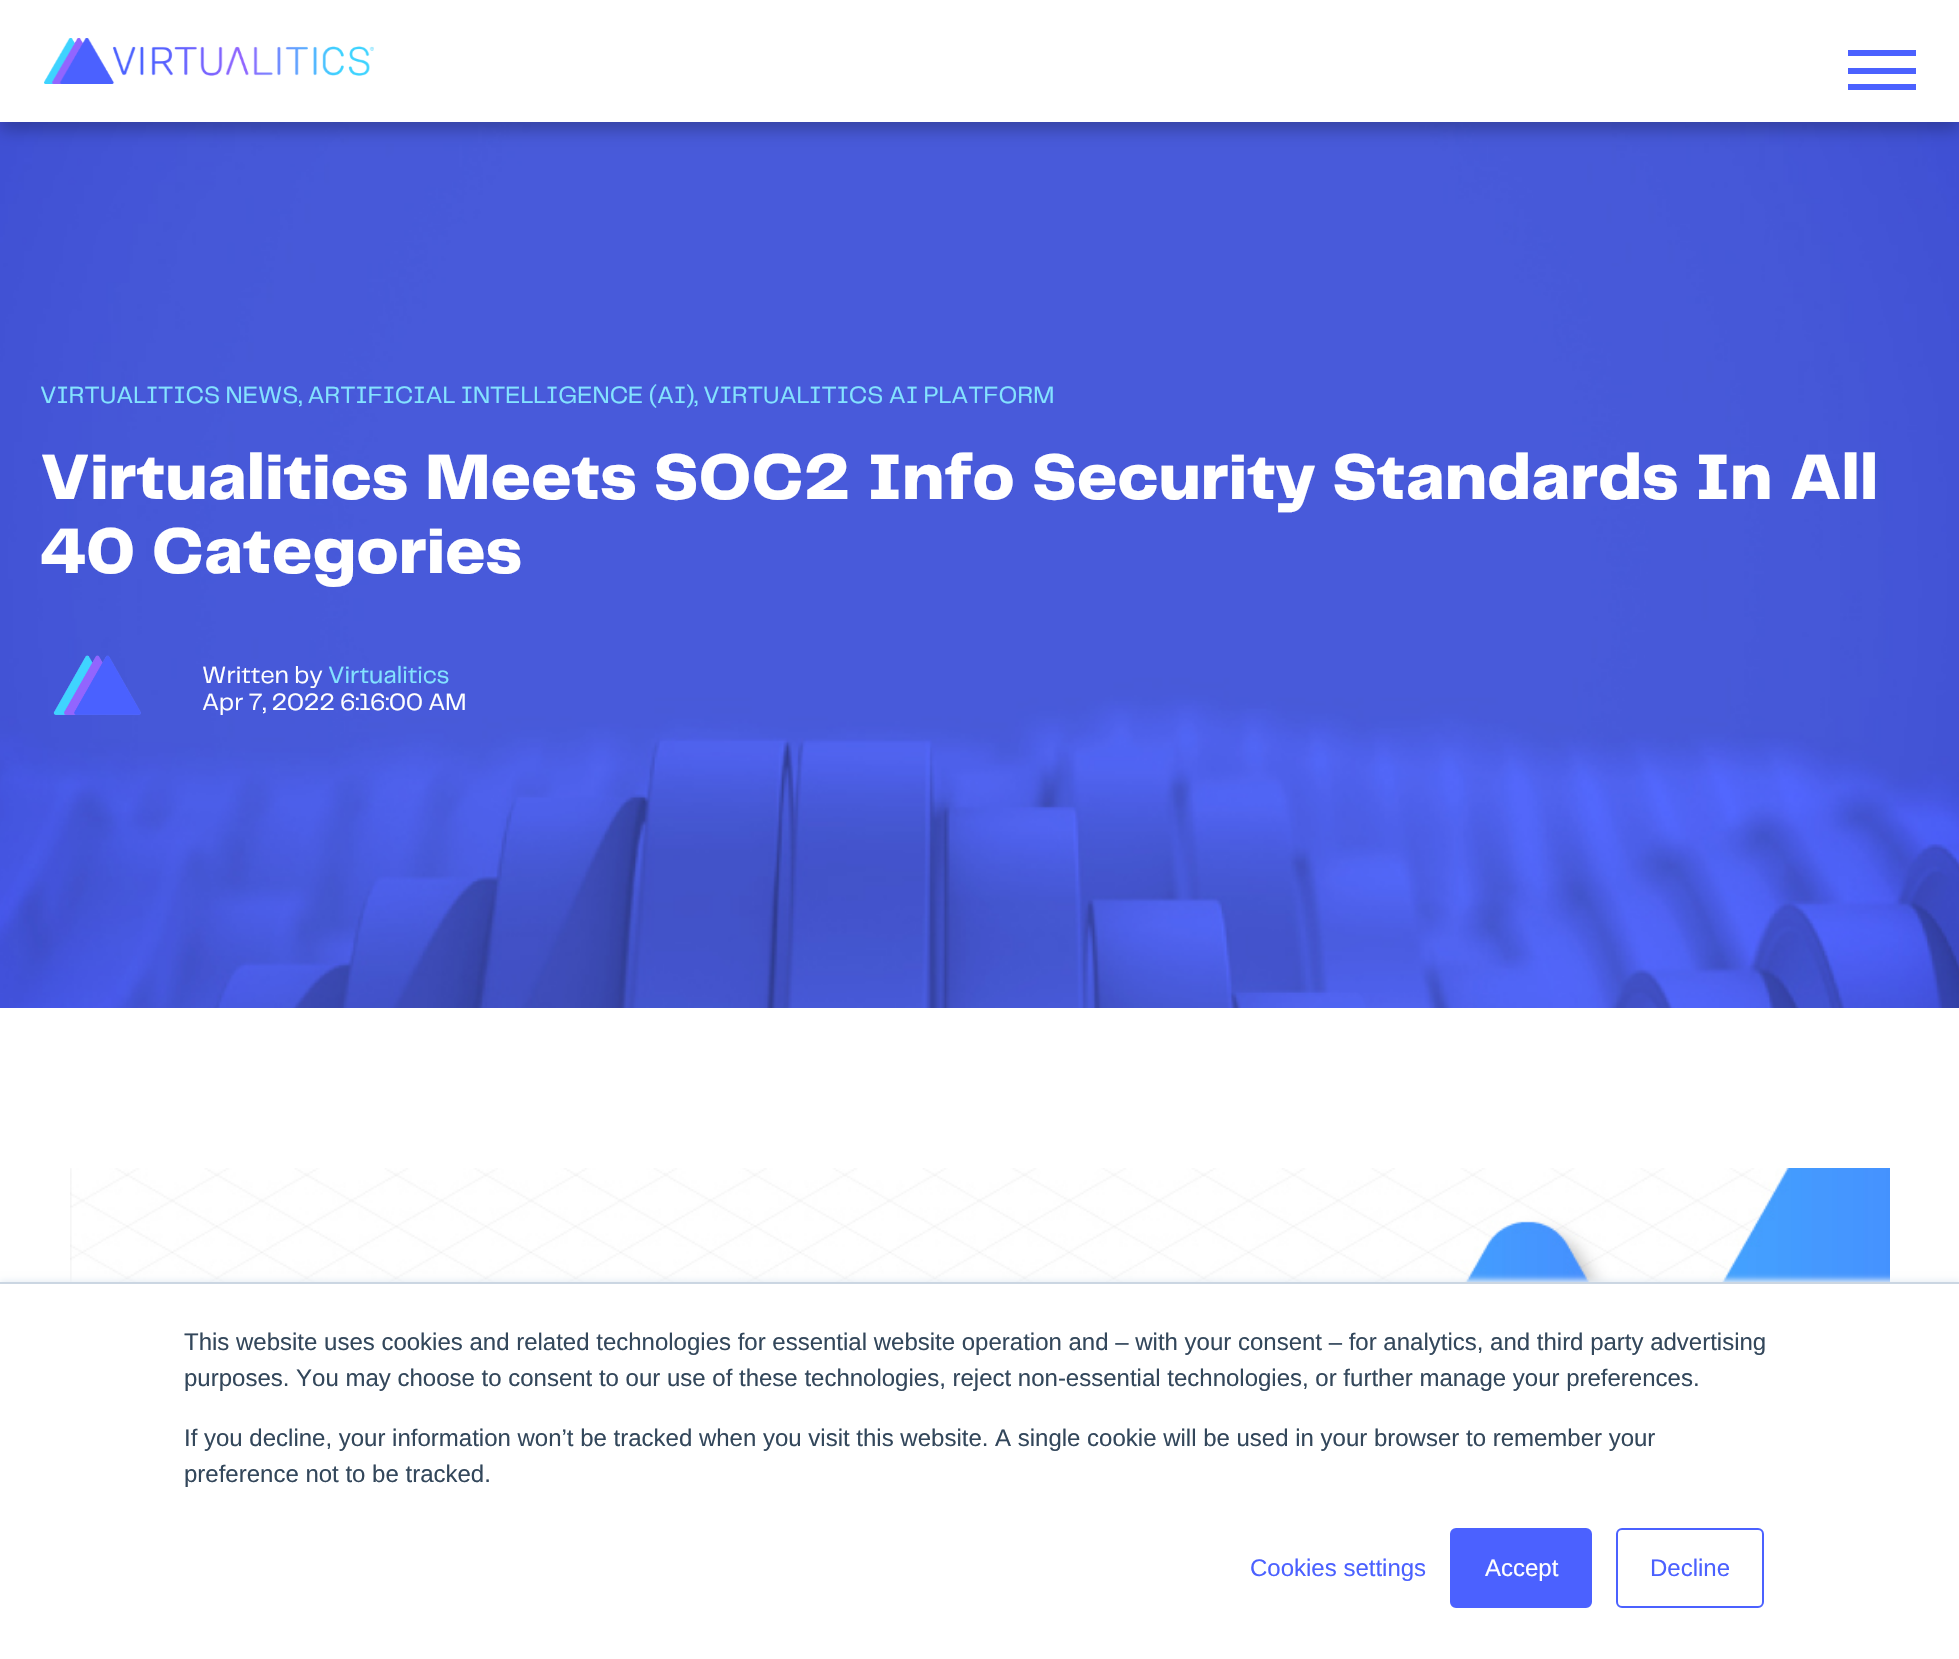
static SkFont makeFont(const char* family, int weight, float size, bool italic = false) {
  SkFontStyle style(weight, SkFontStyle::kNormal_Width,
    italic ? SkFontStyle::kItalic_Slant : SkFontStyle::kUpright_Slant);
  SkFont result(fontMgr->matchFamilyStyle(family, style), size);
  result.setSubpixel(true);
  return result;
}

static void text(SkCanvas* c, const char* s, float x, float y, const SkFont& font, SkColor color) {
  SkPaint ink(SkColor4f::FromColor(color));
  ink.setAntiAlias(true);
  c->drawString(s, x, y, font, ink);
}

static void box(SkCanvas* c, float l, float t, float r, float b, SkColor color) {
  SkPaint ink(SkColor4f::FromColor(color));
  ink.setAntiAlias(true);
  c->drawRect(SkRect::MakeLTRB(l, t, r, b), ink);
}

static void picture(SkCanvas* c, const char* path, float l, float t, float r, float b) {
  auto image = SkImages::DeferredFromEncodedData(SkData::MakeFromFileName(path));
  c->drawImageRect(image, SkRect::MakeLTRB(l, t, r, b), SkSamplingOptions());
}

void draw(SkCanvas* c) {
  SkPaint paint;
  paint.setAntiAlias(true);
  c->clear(0xffffffff);
  picture(c, "img_02.png", 0, 122, 1959, 1008);
  paint.setColor(0x40000000);
  paint.setMaskFilter(SkMaskFilter::MakeBlur(kNormal_SkBlurStyle, 8));
  c->drawRect(SkRect::MakeLTRB(0, 8, 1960, 130), paint);
  paint.setMaskFilter(nullptr);
  box(c, 0, 0, 1959, 122, 0xffffffff);
  picture(c, "img_01.png", 44, 38, 374, 84);
  box(c, 1848, 50, 1916, 56, 0xff4b61ff);
  box(c, 1848, 68, 1916, 74, 0xff4b61ff);
  box(c, 1848, 84, 1916, 90, 0xff4b61ff);
  SkFont face1 = makeFont("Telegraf", 400, 24.4f);
  text(c, "VIRTUALITICS NEWS, ARTIFICIAL INTELLIGENCE (AI), VIRTUALITICS AI PLATFORM", 40, 403, face1, 0xff84e3ff);
  SkFont face2 = makeFont("Telegraf", 800, 66.6f);
  text(c, "Virtualitics Meets SOC2 Info Security Standards In All", 40, 499, face2, 0xffffffff);
  text(c, "40 Categories", 40, 573, face2, 0xffffffff);
  picture(c, "img_03.png", 53, 655, 141, 715);
  text(c, "Written by", 202, 683, face1, 0xffffffff);
  text(c, "Virtualitics", 328, 683, face1, 0xff84e3ff);
  text(c, "Apr 7, 2022 6:16:00 AM", 202, 710, face1, 0xffffffff);
  picture(c, "img_04.png", 70, 1168, 1890, 1282);
  paint.setColor(0xffeaf0f6);
  paint.setMaskFilter(SkMaskFilter::MakeBlur(kNormal_SkBlurStyle, 3));
  c->drawRect(SkRect::MakeLTRB(0, 1280, 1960, 1658), paint);
  paint.setMaskFilter(nullptr);
  box(c, 0, 1284, 1959, 1659, 0xffffffff);
  box(c, 0, 1282, 1959, 1284, 0xffcbd6e2);
  SkFont face3 = makeFont("Liberation Sans", 400, 24);
  text(c, "This website uses cookies and related technologies for essential website operation and – with your consent – for analytics, and third party advertising", 184, 1350, face3, 0xff33475b);
  text(c, "purposes. You may choose to consent to our use of these technologies, reject non-essential technologies, or further manage your preferences.", 184, 1386, face3, 0xff33475b);
  text(c, "If you decline, your information won’t be tracked when you visit this website. A single cookie will be used in your browser to remember your", 184, 1446, face3, 0xff33475b);
  text(c, "preference not to be tracked.", 184, 1482, face3, 0xff33475b);
  text(c, "Cookies settings", 1250, 1576, face3, 0xff4b61ff);
  paint.setColor(0xff4b61ff);
  c->drawRoundRect(SkRect::MakeLTRB(1451, 1529, 1591, 1607), 5, 5, paint);
  paint.setStyle(SkPaint::kStroke_Style);
  paint.setStrokeWidth(2);
  c->drawRoundRect(SkRect::MakeLTRB(1451, 1529, 1591, 1607), 5, 5, paint);
  text(c, "Accept", 1485, 1576, face3, 0xffffffff);
  c->drawRoundRect(SkRect::MakeLTRB(1617, 1529, 1763, 1607), 5, 5, paint);
  text(c, "Decline", 1650, 1576, face3, 0xff4b61ff);
}
